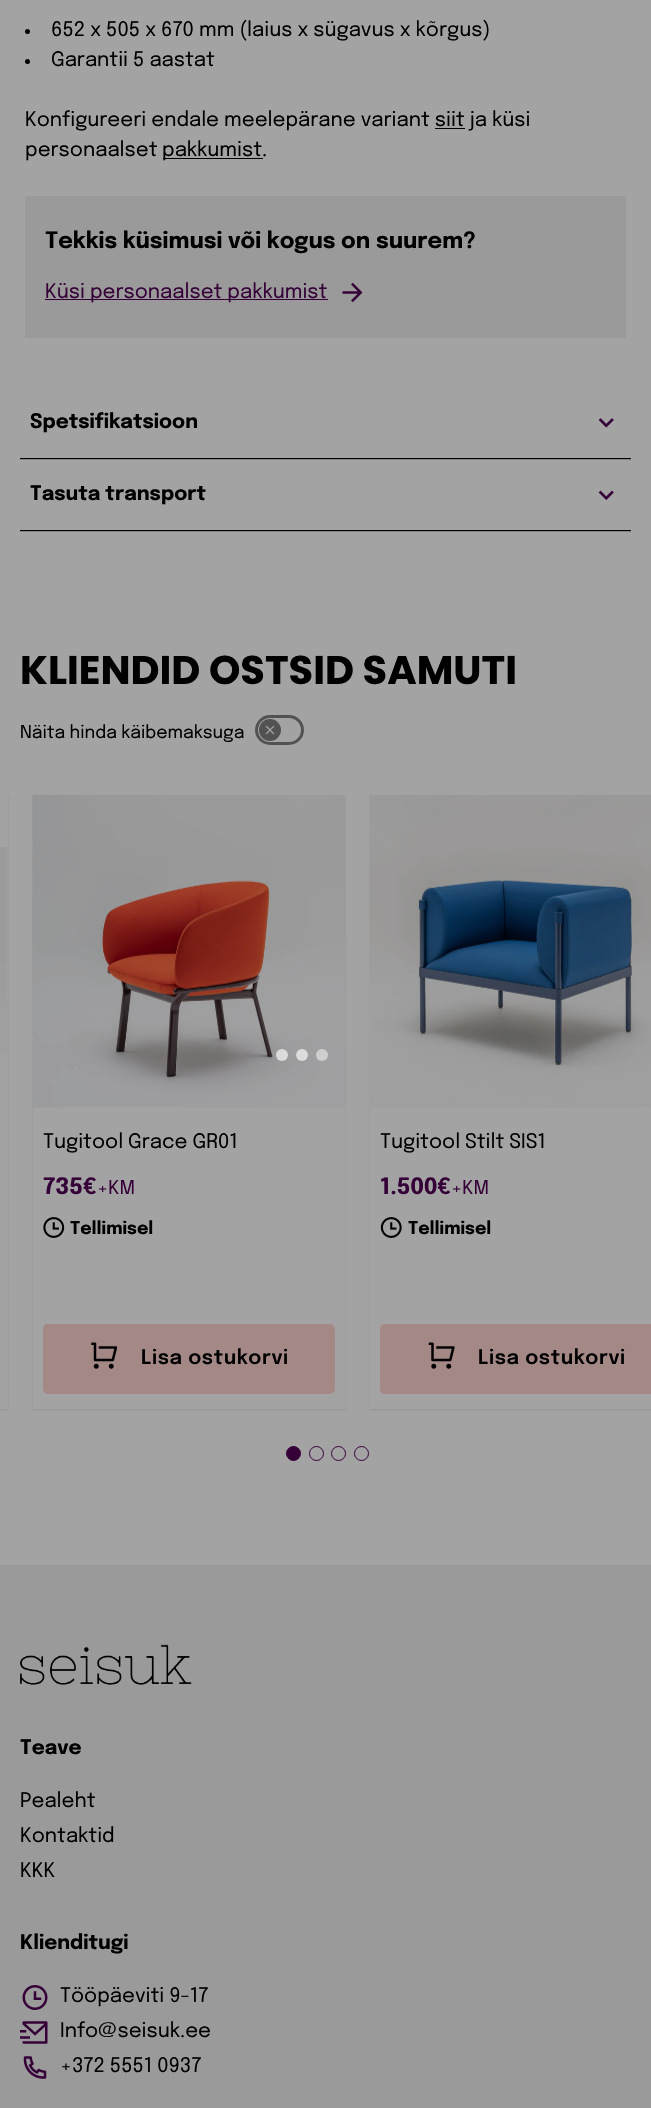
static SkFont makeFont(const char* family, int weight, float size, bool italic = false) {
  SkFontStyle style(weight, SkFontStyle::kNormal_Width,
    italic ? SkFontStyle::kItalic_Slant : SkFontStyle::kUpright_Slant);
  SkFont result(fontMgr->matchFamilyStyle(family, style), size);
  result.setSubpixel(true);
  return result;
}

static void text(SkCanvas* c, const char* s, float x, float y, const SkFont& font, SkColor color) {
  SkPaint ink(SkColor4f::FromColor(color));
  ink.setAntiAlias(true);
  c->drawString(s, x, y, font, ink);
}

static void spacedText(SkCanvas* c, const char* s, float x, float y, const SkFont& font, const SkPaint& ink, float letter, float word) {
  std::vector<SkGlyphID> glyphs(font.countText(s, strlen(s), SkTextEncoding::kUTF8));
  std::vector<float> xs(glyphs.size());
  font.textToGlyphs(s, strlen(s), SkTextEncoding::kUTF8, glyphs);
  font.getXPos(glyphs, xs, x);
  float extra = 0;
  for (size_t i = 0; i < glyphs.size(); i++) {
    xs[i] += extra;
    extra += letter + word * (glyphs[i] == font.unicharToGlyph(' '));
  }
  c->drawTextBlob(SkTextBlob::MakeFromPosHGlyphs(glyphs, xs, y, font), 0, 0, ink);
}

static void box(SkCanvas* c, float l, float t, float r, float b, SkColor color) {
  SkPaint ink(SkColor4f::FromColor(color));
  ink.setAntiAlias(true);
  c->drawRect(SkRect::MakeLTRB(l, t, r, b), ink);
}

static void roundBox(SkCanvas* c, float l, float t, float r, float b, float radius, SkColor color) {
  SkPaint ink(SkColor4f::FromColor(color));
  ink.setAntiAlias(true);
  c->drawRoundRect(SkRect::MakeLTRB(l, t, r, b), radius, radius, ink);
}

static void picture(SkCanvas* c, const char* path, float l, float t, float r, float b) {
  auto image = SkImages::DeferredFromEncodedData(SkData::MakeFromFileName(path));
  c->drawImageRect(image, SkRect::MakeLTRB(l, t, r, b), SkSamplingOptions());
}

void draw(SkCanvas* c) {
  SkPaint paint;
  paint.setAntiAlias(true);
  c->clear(0xffa3a3a3);
  paint.setColor(0xff000000);
  c->drawCircle(27.5f, 31.5f, 2.5f, paint);
  SkFont face1 = makeFont("Epilogue", 400, 20);
  text(c, "652 x 505 x 670 mm (laius x sügavus x kõrgus)", 51, 36, face1, 0xff000000);
  c->drawCircle(27.5f, 61.5f, 2.5f, paint);
  text(c, "Garantii 5 aastat", 51, 66, face1, 0xff000000);
  text(c, "Konfigureeri endale meelepärane variant siit ja küsi", 25, 126, face1, 0xff000000);
  text(c, "personaalset", 25, 156, face1, 0xff000000);
  box(c, 163, 158, 263, 159, 0xff000000);
  text(c, "pakkumist.", 162, 156, face1, 0xff000000);
  box(c, 435, 128, 465, 129, 0xff000000);
  box(c, 25, 196, 626, 338, 0xff9a9a9a);
  SkFont face2 = makeFont("Epilogue", 700, 22.5f);
  text(c, "Tekkis küsimusi või kogus on suurem?", 45, 248, face2, 0xff000000);
  box(c, 45, 299, 328, 300, 0xff350038);
  text(c, "Küsi personaalset pakkumist", 45, 298, face1, 0xff350038);
  picture(c, "img_01.png", 342, 282, 363, 303);
  box(c, 20, 459, 631, 460, 0xff838383);
  box(c, 20, 458, 631, 459, 0xff000000);
  SkFont face3 = makeFont("Epilogue", 700, 20);
  text(c, "Spetsifikatsioon", 30, 428, face3, 0xff000000);
  picture(c, "img_02.png", 598, 418, 614, 428);
  box(c, 20, 531, 631, 532, 0xff838383);
  box(c, 20, 530, 631, 531, 0xff000000);
  text(c, "Tasuta transport", 30, 500, face3, 0xff000000);
  picture(c, "img_03.png", 598, 490, 614, 500);
  SkFont face4 = makeFont("Poppins", 700, 40);
  text(c, "KLIENDID OSTSID SAMUTI", 20, 684, face4, 0xff000000);
  SkFont face5 = makeFont("Epilogue", 400, 17.5f);
  text(c, "Näita hinda käibemaksuga", 20, 738, face5, 0xff000000);
  paint.setStyle(SkPaint::kStroke_Style);
  paint.setStrokeWidth(3);
  paint.setColor(0xff525252);
  c->drawRoundRect(SkRect::MakeLTRB(256.5f, 716.5f, 302.5f, 743.5f), 13.5f, 13.5f, paint);
  paint.setStyle(SkPaint::kFill_Style);
  c->drawCircle(270, 730, 11, paint);
  picture(c, "img_04.png", 265, 725, 275, 735);
  paint.setColor(0x1a000000);
  paint.setMaskFilter(SkMaskFilter::MakeBlur(kNormal_SkBlurStyle, 1));
  c->drawRect(SkRect::MakeLTRB(-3, 796, 8, 1410), paint);
  paint.setMaskFilter(nullptr);
  box(c, 0, 795, 8, 1409, 0xffa3a3a3);
  picture(c, "img_05.png", 0, 847, 8, 1055);
  paint.setMaskFilter(SkMaskFilter::MakeBlur(kNormal_SkBlurStyle, 1));
  c->drawRect(SkRect::MakeLTRB(33, 796, 345, 1410), paint);
  paint.setMaskFilter(nullptr);
  box(c, 33, 1106, 345, 1409, 0xffa3a3a3);
  picture(c, "img_06.png", 32, 795, 345, 1108);
  text(c, "Tugitool Grace GR01", 43, 1148, face1, 0xff000000);
  text(c, "735€", 43, 1194, face2, 0xff350038);
  SkFont face6 = makeFont("Epilogue", 400, 19);
  text(c, "+KM", 97, 1194, face6, 0xff350038);
  picture(c, "img_07.png", 43, 1217, 65, 1238);
  SkFont face7 = makeFont("Epilogue", 700, 17.5f);
  text(c, "Tellimisel", 70, 1234, face7, 0xff000000);
  roundBox(c, 43, 1324, 335, 1394, 5, 0xffa38886);
  picture(c, "img_08.png", 91, 1342, 118, 1369);
  SkFont face8 = makeFont("Epilogue", 600, 20);
  paint.setColor(0xff000000);
  spacedText(c, "Lisa ostukorvi", 141, 1364, face8, paint, 0.6f, 0);
  paint.setColor(0x1a000000);
  paint.setMaskFilter(SkMaskFilter::MakeBlur(kNormal_SkBlurStyle, 1));
  c->drawRect(SkRect::MakeLTRB(370, 796, 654, 1410), paint);
  paint.setMaskFilter(nullptr);
  box(c, 370, 1106, 651, 1409, 0xffa3a3a3);
  picture(c, "img_09.png", 370, 795, 651, 1108);
  text(c, "Tugitool Stilt SIS1", 380, 1148, face1, 0xff000000);
  text(c, "1.500€", 380, 1194, face2, 0xff350038);
  text(c, "+KM", 451, 1194, face6, 0xff350038);
  picture(c, "img_10.png", 380, 1217, 402, 1238);
  text(c, "Tellimisel", 408, 1234, face7, 0xff000000);
  paint.setColor(0xffa38886);
  c->drawPath(SkPathBuilder().moveTo(385, 1324).lineTo(651, 1324).lineTo(651, 1394).lineTo(385, 1394).cubicTo(382, 1394, 380, 1392, 380, 1389).lineTo(380, 1329).cubicTo(380, 1326, 382, 1324, 385, 1324).close().detach(), paint);
  picture(c, "img_11.png", 428, 1342, 455, 1369);
  paint.setColor(0xff000000);
  spacedText(c, "Lisa ostukorvi", 478, 1364, face8, paint, 0.6f, 0);
  paint.setColor(0xff350038);
  c->drawCircle(293.5f, 1453.5f, 7, paint);
  paint.setStyle(SkPaint::kStroke_Style);
  paint.setStrokeWidth(1);
  c->drawCircle(293.5f, 1453.5f, 7, paint);
  c->drawCircle(316.5f, 1453.5f, 7, paint);
  c->drawCircle(338.5f, 1453.5f, 7, paint);
  c->drawCircle(361.5f, 1453.5f, 7, paint);
  box(c, 0, 1565, 651, 2108, 0xff9a9a9a);
  picture(c, "img_12.png", 20, 1644, 192, 1685);
  text(c, "Teave", 20, 1754, face3, 0xff000000);
  text(c, "Pealeht", 20, 1807, face1, 0xff000000);
  text(c, "Kontaktid", 20, 1842, face1, 0xff000000);
  text(c, "KKK", 20, 1877, face1, 0xff000000);
  text(c, "Klienditugi", 20, 1949, face3, 0xff000000);
  picture(c, "img_13.png", 22, 1985, 48, 2010);
  text(c, "Tööpäeviti 9-17", 60, 2002, face1, 0xff000000);
  picture(c, "img_14.png", 20, 2021, 48, 2044);
  text(c, "Info@seisuk.ee", 60, 2037, face1, 0xff000000);
  picture(c, "img_15.png", 23, 2056, 47, 2079);
  text(c, "+372 5551 0937", 60, 2072, face1, 0xff000000);
  paint.setStyle(SkPaint::kFill_Style);
  paint.setColor(0xa6ffffff);
  c->drawCircle(282, 1055, 6, paint);
  paint.setColor(0xffdddcdd);
  c->drawCircle(302, 1055, 6, paint);
  paint.setColor(0xffcfcfd0);
  c->drawCircle(322, 1055, 6, paint);
}
